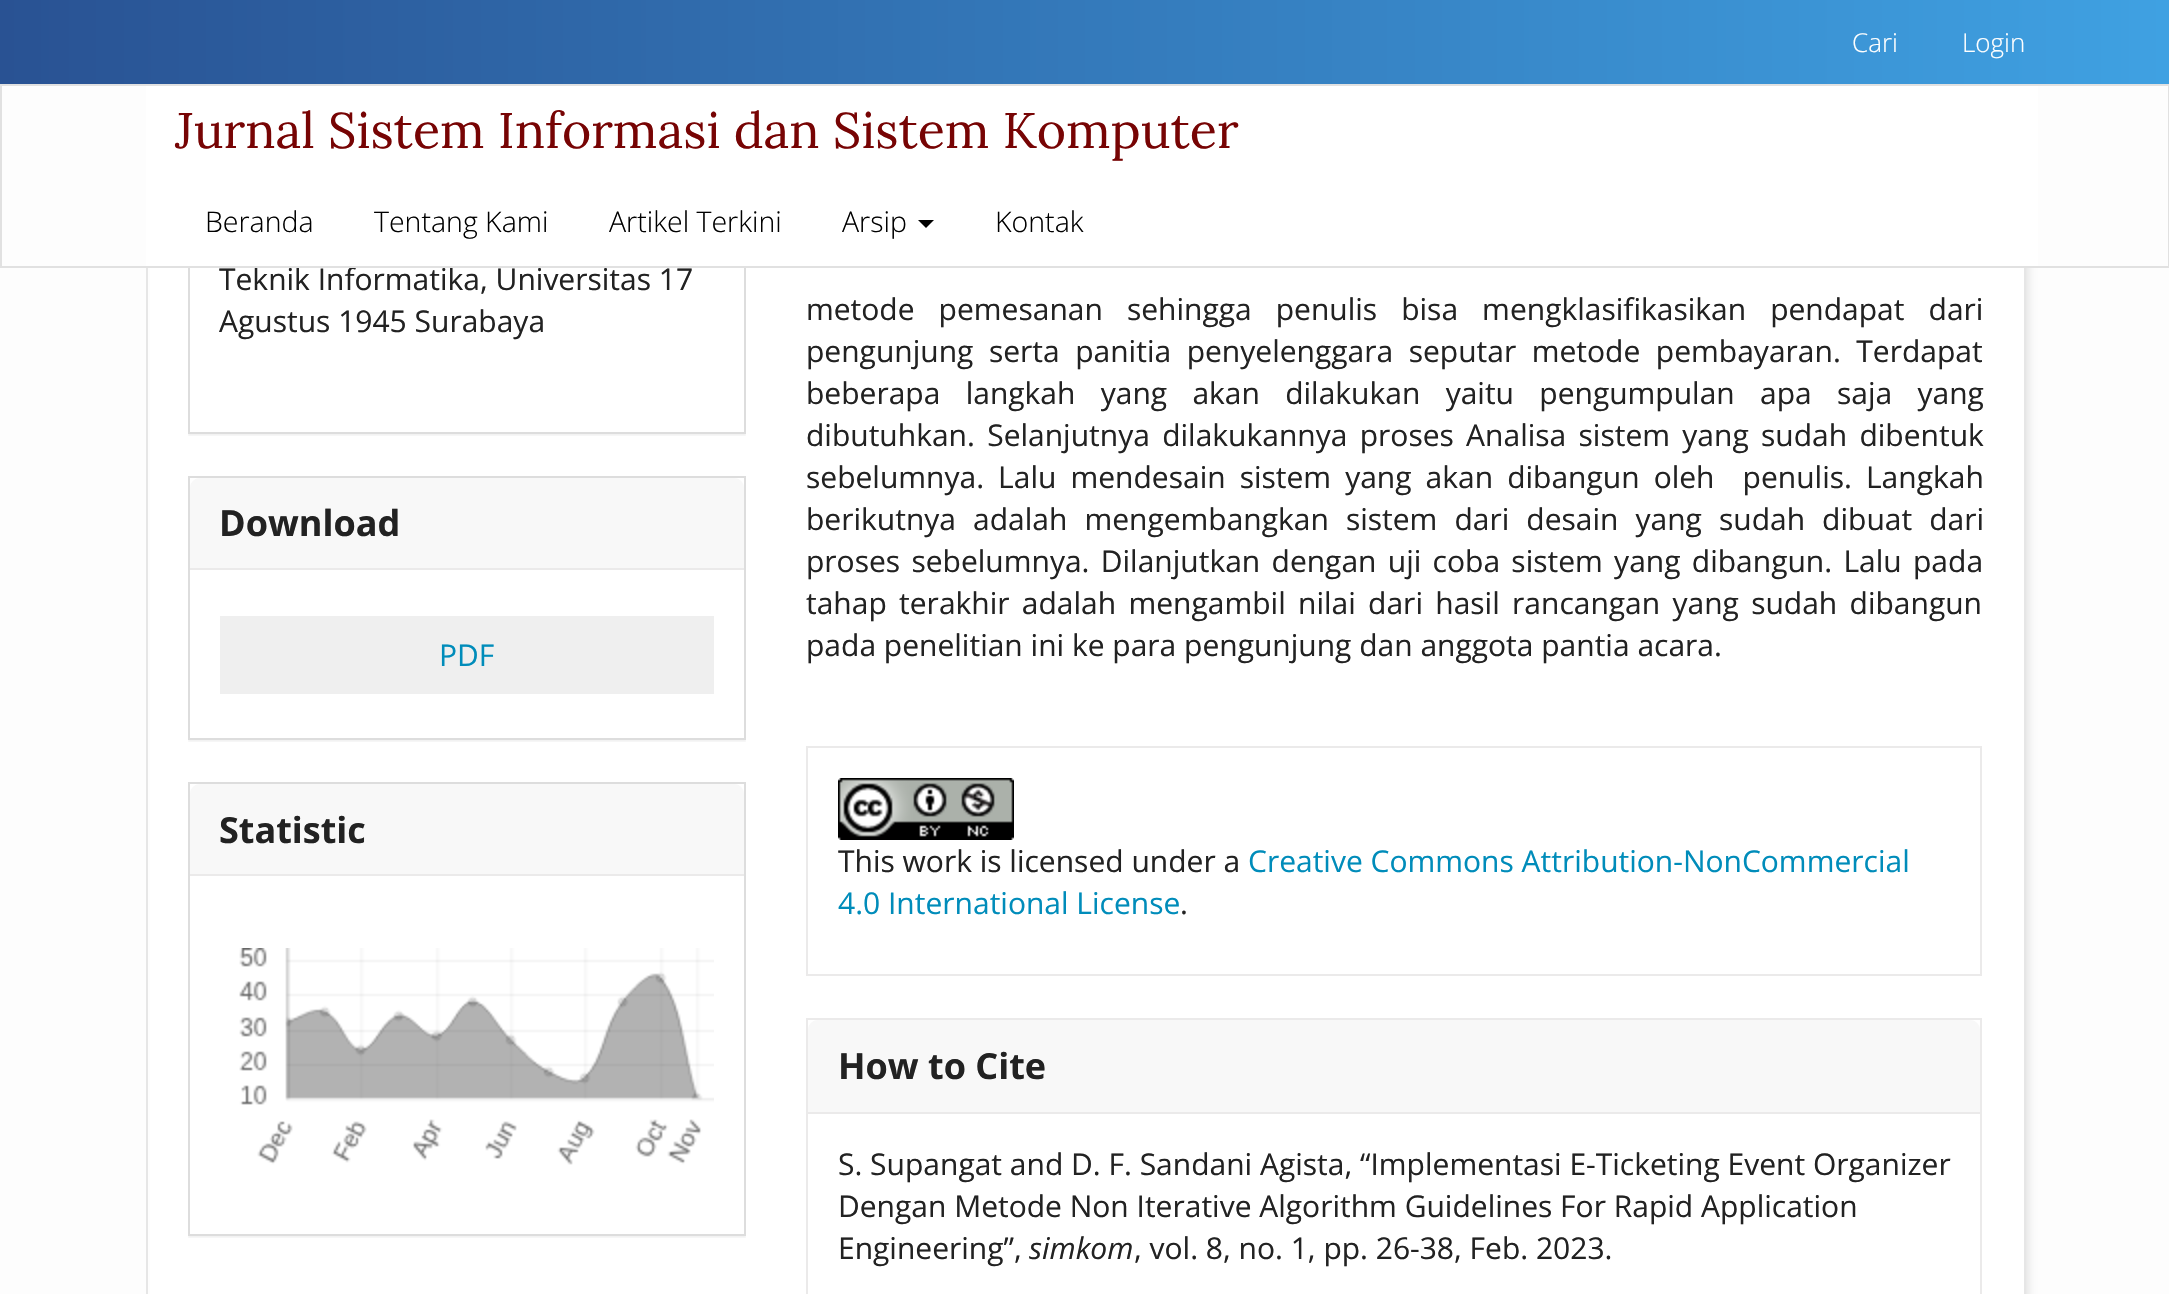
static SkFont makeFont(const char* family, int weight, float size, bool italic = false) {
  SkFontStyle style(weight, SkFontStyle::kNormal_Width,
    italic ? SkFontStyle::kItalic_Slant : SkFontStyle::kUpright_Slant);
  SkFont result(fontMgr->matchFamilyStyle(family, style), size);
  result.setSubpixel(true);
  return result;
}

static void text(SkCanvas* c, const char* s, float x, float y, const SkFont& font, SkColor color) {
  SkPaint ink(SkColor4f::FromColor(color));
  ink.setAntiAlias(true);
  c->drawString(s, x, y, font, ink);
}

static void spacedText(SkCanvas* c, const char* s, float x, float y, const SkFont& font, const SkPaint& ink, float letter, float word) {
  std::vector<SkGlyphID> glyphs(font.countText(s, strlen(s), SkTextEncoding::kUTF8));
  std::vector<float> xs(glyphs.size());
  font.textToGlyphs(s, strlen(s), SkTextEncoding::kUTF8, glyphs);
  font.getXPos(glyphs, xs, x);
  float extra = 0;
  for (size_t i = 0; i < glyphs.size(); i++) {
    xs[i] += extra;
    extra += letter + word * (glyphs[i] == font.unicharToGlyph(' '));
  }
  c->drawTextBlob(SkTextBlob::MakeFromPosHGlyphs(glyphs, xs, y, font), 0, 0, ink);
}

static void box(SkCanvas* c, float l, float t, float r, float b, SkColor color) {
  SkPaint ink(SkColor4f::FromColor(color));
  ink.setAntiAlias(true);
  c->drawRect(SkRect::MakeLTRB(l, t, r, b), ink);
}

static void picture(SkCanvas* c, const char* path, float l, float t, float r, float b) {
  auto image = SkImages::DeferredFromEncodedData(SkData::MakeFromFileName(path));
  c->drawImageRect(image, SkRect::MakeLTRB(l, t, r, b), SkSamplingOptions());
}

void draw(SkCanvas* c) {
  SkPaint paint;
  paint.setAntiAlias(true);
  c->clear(0xfffdfdfd);
  paint.setColor(0x59a6a6a6);
  paint.setMaskFilter(SkMaskFilter::MakeBlur(kNormal_SkBlurStyle, 5));
  c->drawRoundRect(SkRect::MakeLTRB(160, -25, 2028, 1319), 10, 10, paint);
  paint.setMaskFilter(nullptr);
  box(c, 150, 268, 2024, 1294, 0xffffffff);
  paint.setStyle(SkPaint::kStroke_Style);
  paint.setStrokeWidth(2);
  paint.setColor(0xffe6e6e6);
  c->drawRect(SkRect::MakeLTRB(147, -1, 2025, 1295), paint);
  c->save();
  c->clipRect(SkRect::MakeLTRB(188, 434, 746, 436));
  paint.setStyle(SkPaint::kFill_Style);
  paint.setColor(0x0d000000);
  paint.setMaskFilter(SkMaskFilter::MakeBlur(kNormal_SkBlurStyle, 1));
  c->drawRect(SkRect::MakeLTRB(188, -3, 746, 436), paint);
  paint.setMaskFilter(nullptr);
  c->restore();
  paint.setStyle(SkPaint::kStroke_Style);
  paint.setColor(0xffdddddd);
  c->drawRect(SkRect::MakeLTRB(189, -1, 745, 433), paint);
  paint.setStyle(SkPaint::kFill_Style);
  {
    const SkColor colors[] = {0xff295293, 0xff3fa1e2};
    const float stops[] = {0, 1};
    const SkPoint ends[] = {{0, 42}, {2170, 42}};
    paint.setShader(SkGradientShader::MakeLinear(ends, colors, stops, 2, SkTileMode::kClamp));
    paint.setAlpha(255);
  }
  c->drawRect(SkRect::MakeLTRB(0, 0, 2169, 84), paint);
  SkFont face1 = makeFont("Open Sans", 300, 26);
  text(c, "Cari", 1852, 52, face1, 0xffffffff);
  text(c, "Login", 1962, 52, face1, 0xffffffff);
  box(c, 146, 86, 2038, 266, 0xffffffff);
  SkFont face2 = makeFont("Open Sans", 400, 30);
  text(c, "Teknik Informatika, Universitas 17", 219, 290, face2, 0xff222222);
  paint.setStyle(SkPaint::kStroke_Style);
  paint.setShader(nullptr);
  paint.setColor(0xffe1e1e1);
  c->drawRect(SkRect::MakeLTRB(1, 85, 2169, 267), paint);
  SkFont face3 = makeFont("Lora", 400, 50);
  text(c, "Jurnal Sistem Informasi dan Sistem Komputer", 175, 148, face3, 0xff770404);
  SkFont face4 = makeFont("Open Sans", 300, 28.5f);
  text(c, "Beranda", 205, 232, face4, 0xff000000);
  text(c, "Tentang Kami", 374, 232, face4, 0xff000000);
  text(c, "Artikel Terkini", 609, 232, face4, 0xff000000);
  text(c, "Arsip", 842, 232, face4, 0xff000000);
  paint.setStyle(SkPaint::kFill_Style);
  paint.setColor(0xff000000);
  c->drawPath(SkPathBuilder().moveTo(918, 220).lineTo(934, 220).lineTo(926, 228).close().detach(), paint);
  text(c, "Kontak", 995, 232, face4, 0xff000000);
  text(c, "Agustus 1945 Surabaya", 219, 332, face2, 0xff222222);
  c->save();
  c->clipRect(SkRect::MakeLTRB(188, 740, 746, 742));
  paint.setColor(0x0d000000);
  paint.setMaskFilter(SkMaskFilter::MakeBlur(kNormal_SkBlurStyle, 1));
  c->drawRect(SkRect::MakeLTRB(188, 478, 746, 742), paint);
  paint.setMaskFilter(nullptr);
  c->restore();
  paint.setStyle(SkPaint::kStroke_Style);
  paint.setColor(0xffdddddd);
  c->drawRect(SkRect::MakeLTRB(189, 477, 745, 739), paint);
  paint.setStyle(SkPaint::kFill_Style);
  paint.setColor(0xfff8f8f8);
  c->drawPath(SkPathBuilder().moveTo(200, 478).lineTo(734, 478).cubicTo(739.5f, 478, 744, 482.5f, 744, 488).lineTo(744, 570).lineTo(190, 570).lineTo(190, 488).cubicTo(190, 482.5f, 194.5f, 478, 200, 478).close().detach(), paint);
  box(c, 190, 568, 744, 570, 0xffebeaea);
  SkFont face5 = makeFont("Open Sans", 700, 36);
  text(c, "Download", 219, 536, face5, 0xff222222);
  box(c, 220, 616, 714, 694, 0xffefefef);
  text(c, "PDF", 439, 666, face2, 0xff008cba);
  c->save();
  c->clipRect(SkRect::MakeLTRB(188, 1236, 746, 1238));
  paint.setColor(0x0d000000);
  paint.setMaskFilter(SkMaskFilter::MakeBlur(kNormal_SkBlurStyle, 1));
  c->drawRect(SkRect::MakeLTRB(188, 784, 746, 1238), paint);
  paint.setMaskFilter(nullptr);
  c->restore();
  paint.setStyle(SkPaint::kStroke_Style);
  paint.setColor(0xffdddddd);
  c->drawRect(SkRect::MakeLTRB(189, 783, 745, 1235), paint);
  paint.setStyle(SkPaint::kFill_Style);
  paint.setColor(0xfff8f8f8);
  c->drawPath(SkPathBuilder().moveTo(200, 784).lineTo(734, 784).cubicTo(739.5f, 784, 744, 788.5f, 744, 794).lineTo(744, 876).lineTo(190, 876).lineTo(190, 794).cubicTo(190, 788.5f, 194.5f, 784, 200, 784).close().detach(), paint);
  box(c, 190, 874, 744, 876, 0xffebeaea);
  text(c, "Statistic", 219, 843, face5, 0xff222222);
  picture(c, "img_01.png", 239, 948, 714, 1165);
  paint.setColor(0xff222222);
  spacedText(c, "metode pemesanan sehingga penulis bisa mengklasifikasikan pendapat dari", 806, 320, face2, paint, 0, 16.25f);
  spacedText(c, "pengunjung serta panitia penyelenggara seputar metode pembayaran. Terdapat", 806, 362, face2, paint, 0, 7.75f);
  spacedText(c, "beberapa langkah yang akan dilakukan yaitu pengumpulan apa saja yang", 806, 404, face2, paint, 0, 17.5f);
  spacedText(c, "dibutuhkan. Selanjutnya dilakukannya proses Analisa sistem yang sudah dibentuk", 806, 446, face2, paint, 0, 4.5f);
  spacedText(c, "sebelumnya. Lalu mendesain sistem yang akan dibangun oleh  penulis. Langkah", 806, 488, face2, paint, 0, 6.25f);
  spacedText(c, "berikutnya adalah mengembangkan sistem dari desain yang sudah dibuat dari", 806, 530, face2, paint, 0, 9.25f);
  spacedText(c, "proses sebelumnya. Dilanjutkan dengan uji coba sistem yang dibangun. Lalu pada", 806, 572, face2, paint, 0, 3.5f);
  spacedText(c, "tahap terakhir adalah mengambil nilai dari hasil rancangan yang sudah dibangun", 806, 614, face2, paint, 0, 4.5f);
  text(c, "pada penelitian ini ke para pengunjung dan anggota pantia acara.", 806, 656, face2, 0xff222222);
  paint.setStyle(SkPaint::kStroke_Style);
  paint.setColor(0xffebeaea);
  c->drawRect(SkRect::MakeLTRB(807, 747, 1981, 975), paint);
  picture(c, "img_02.png", 838, 778, 1014, 840);
  text(c, "This work is licensed under a", 838, 872, face2, 0xff222222);
  text(c, "Creative Commons Attribution-NonCommercial", 1248, 872, face2, 0xff008cba);
  text(c, "4.0 International License", 838, 914, face2, 0xff008cba);
  text(c, ".", 1180, 914, face2, 0xff222222);
  c->drawRect(SkRect::MakeLTRB(807, 1019, 1981, 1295), paint);
  paint.setStyle(SkPaint::kFill_Style);
  paint.setColor(0xfff8f8f8);
  c->drawPath(SkPathBuilder().moveTo(818, 1020).lineTo(1970, 1020).cubicTo(1975.5f, 1020, 1980, 1024.5f, 1980, 1030).lineTo(1980, 1114).lineTo(808, 1114).lineTo(808, 1030).cubicTo(808, 1024.5f, 812.5f, 1020, 818, 1020).close().detach(), paint);
  box(c, 808, 1112, 1980, 1114, 0xffebeaea);
  text(c, "How to Cite", 838, 1079, face5, 0xff222222);
  text(c, "S. Supangat and D. F. Sandani Agista, “Implementasi E-Ticketing Event Organizer", 838, 1175, face2, 0xff222222);
  text(c, "Dengan Metode Non Iterative Algorithm Guidelines For Rapid Application", 838, 1217, face2, 0xff222222);
  text(c, "Engineering”,", 838, 1259, face2, 0xff222222);
  SkFont face6 = makeFont("Open Sans", 400, 30, true);
  text(c, "simkom", 1029, 1259, face6, 0xff222222);
  text(c, ", vol. 8, no. 1, pp. 26-38, Feb. 2023.", 1134, 1259, face2, 0xff222222);
}
